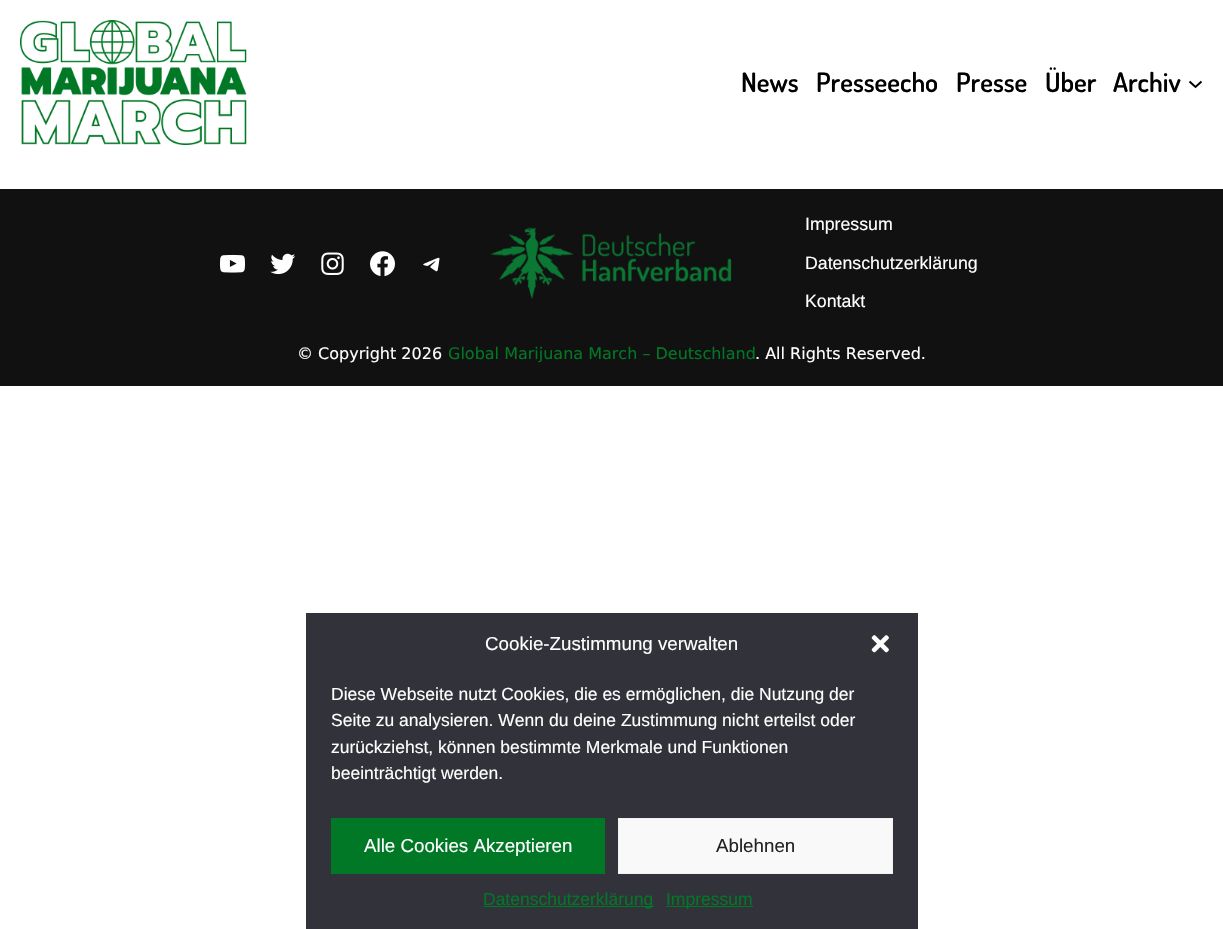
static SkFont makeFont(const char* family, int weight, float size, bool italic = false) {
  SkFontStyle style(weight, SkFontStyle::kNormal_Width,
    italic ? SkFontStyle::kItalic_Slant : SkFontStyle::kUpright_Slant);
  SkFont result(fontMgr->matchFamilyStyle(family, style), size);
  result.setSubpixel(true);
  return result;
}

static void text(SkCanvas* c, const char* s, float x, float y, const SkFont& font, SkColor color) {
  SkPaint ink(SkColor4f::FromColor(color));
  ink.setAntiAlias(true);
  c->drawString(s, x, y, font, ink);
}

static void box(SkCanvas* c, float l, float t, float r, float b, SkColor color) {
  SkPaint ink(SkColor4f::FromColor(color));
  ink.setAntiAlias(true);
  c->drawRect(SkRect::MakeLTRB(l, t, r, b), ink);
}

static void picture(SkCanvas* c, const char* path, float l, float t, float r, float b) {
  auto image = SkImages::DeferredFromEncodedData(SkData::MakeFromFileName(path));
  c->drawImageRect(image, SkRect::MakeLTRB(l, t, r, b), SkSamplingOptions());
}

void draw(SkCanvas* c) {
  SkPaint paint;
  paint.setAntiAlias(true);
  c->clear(0xffffffff);
  picture(c, "img_01.png", 20, 20, 247, 145);
  SkFont face1 = makeFont("Dosis", 600, 26.75f);
  text(c, "News", 741, 92, face1, 0xff000000);
  text(c, "Presseecho", 816, 92, face1, 0xff000000);
  text(c, "Presse", 956, 92, face1, 0xff000000);
  text(c, "Über", 1045, 92, face1, 0xff000000);
  text(c, "Archiv", 1113, 92, face1, 0xff000000);
  paint.setStyle(SkPaint::kStroke_Style);
  paint.setStrokeWidth(2);
  paint.setColor(0xff000000);
  c->drawPath(SkPathBuilder().moveTo(1189.5f, 81.5f).lineTo(1195.5f, 87).lineTo(1201.5f, 81.5f).detach(), paint);
  box(c, 0, 189, 1223, 386, 0xff111111);
  picture(c, "img_02.png", 220, 254, 245, 273);
  picture(c, "img_03.png", 270, 253, 296, 275);
  picture(c, "img_04.png", 321, 252, 344, 275);
  picture(c, "img_05.png", 370, 251, 395, 277);
  picture(c, "img_06.png", 423, 257, 440, 272);
  picture(c, "img_07.png", 490, 227, 732, 299);
  SkFont face2 = makeFont("Liberation Sans", 400, 17.75f);
  text(c, "Impressum", 805, 230, face2, 0xffffffff);
  text(c, "Datenschutzerklärung", 805, 269, face2, 0xffffffff);
  text(c, "Kontakt", 805, 307, face2, 0xffffffff);
  SkFont face3 = makeFont("DejaVu Sans", 400, 16);
  text(c, "© Copyright 2026", 297, 359, face3, 0xffffffff);
  text(c, "Global Marijuana March – Deutschland", 448, 359, face3, 0xff007825);
  text(c, ". All Rights Reserved.", 755, 359, face3, 0xffffffff);
  box(c, 306, 613, 918, 929, 0xff32323a);
  SkFont face4 = makeFont("Liberation Sans", 400, 18.75f);
  text(c, "Cookie-Zustimmung verwalten", 485, 650, face4, 0xffffffff);
  picture(c, "img_08.png", 871, 635, 889, 653);
  SkFont face5 = makeFont("Liberation Sans", 400, 17.5f);
  text(c, "Diese Webseite nutzt Cookies, die es ermöglichen, die Nutzung der", 331, 700, face5, 0xffffffff);
  text(c, "Seite zu analysieren. Wenn du deine Zustimmung nicht erteilst oder", 331, 726, face5, 0xffffffff);
  text(c, "zurückziehst, können bestimmte Merkmale und Funktionen", 331, 753, face5, 0xffffffff);
  text(c, "beeinträchtigt werden.", 331, 779, face5, 0xffffffff);
  box(c, 331, 818, 605, 874, 0xff007825);
  text(c, "Alle Cookies Akzeptieren", 364, 852, face4, 0xffffffff);
  paint.setStyle(SkPaint::kFill_Style);
  paint.setColor(0xfff9f9f9);
  c->drawRect(SkRect::MakeLTRB(618.5f, 818.5f, 892.5f, 873.5f), paint);
  paint.setStyle(SkPaint::kStroke_Style);
  paint.setStrokeWidth(1);
  paint.setColor(0xfff2f2f2);
  c->drawRect(SkRect::MakeLTRB(618.5f, 818.5f, 892.5f, 873.5f), paint);
  text(c, "Ablehnen", 716, 852, face4, 0xff222222);
  box(c, 484, 906, 654, 907, 0xff007825);
  text(c, "Datenschutzerklärung", 483, 905, face5, 0xff007825);
  box(c, 666, 906, 753, 907, 0xff007825);
  text(c, "Impressum", 666, 905, face5, 0xff007825);
}
